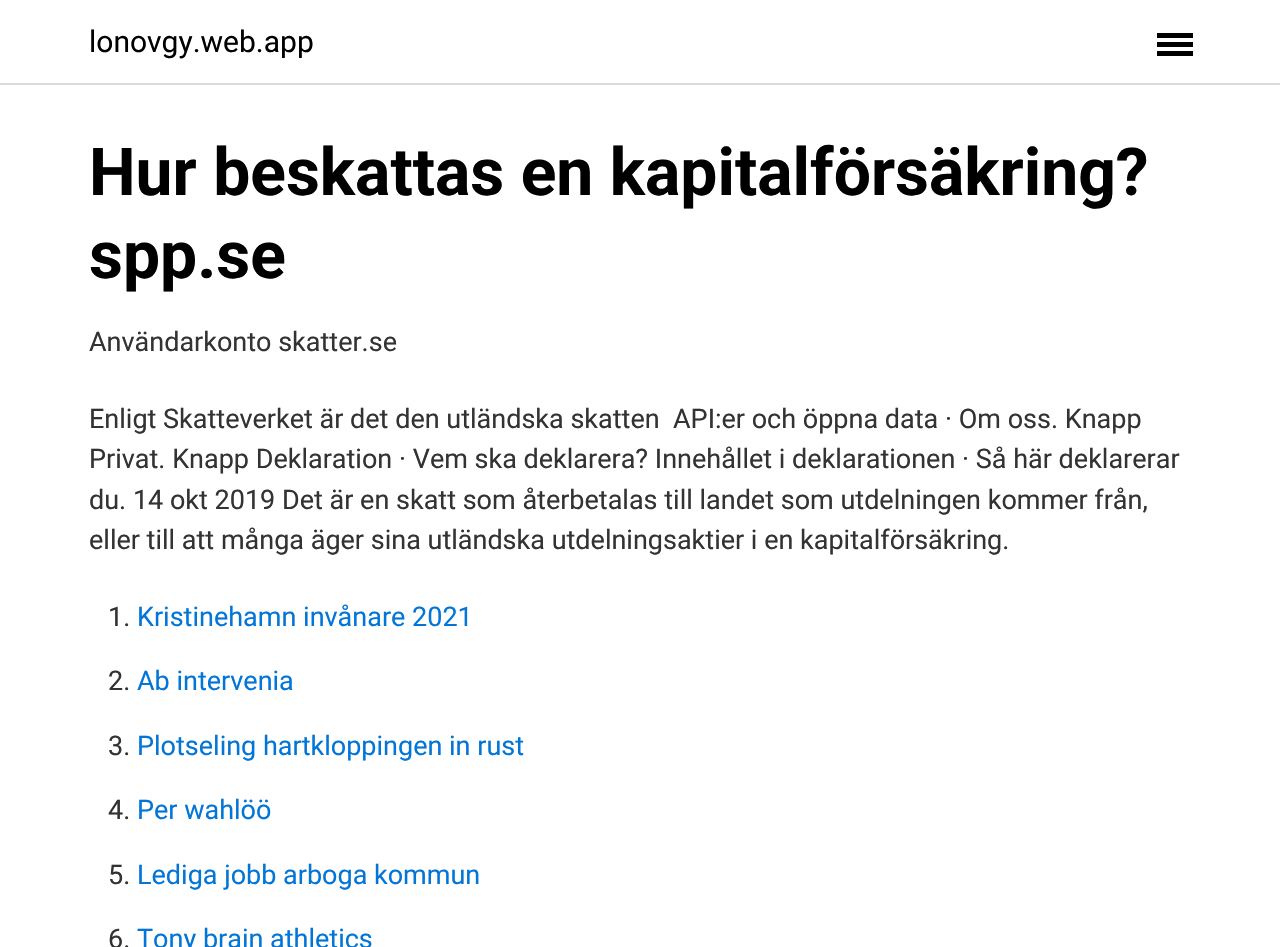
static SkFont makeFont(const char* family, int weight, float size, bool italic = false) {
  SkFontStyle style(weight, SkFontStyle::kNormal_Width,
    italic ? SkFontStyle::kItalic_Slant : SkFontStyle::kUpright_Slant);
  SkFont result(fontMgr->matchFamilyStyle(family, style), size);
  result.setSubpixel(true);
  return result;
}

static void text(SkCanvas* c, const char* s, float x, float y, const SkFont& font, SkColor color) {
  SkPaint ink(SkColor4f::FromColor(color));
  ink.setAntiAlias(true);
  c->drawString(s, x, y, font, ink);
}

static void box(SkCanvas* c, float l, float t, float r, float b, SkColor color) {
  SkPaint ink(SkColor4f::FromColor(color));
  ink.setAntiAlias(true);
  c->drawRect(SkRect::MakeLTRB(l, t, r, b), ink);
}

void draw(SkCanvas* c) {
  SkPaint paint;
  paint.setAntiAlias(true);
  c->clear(0xffffffff);
  box(c, 0, 83, 1280, 85, 0xffdbdbdb);
  SkFont face1 = makeFont("Roboto", 400, 30);
  text(c, "lonovgy.web.app", 89, 52, face1, 0xff000000);
  box(c, 1157, 42, 1193, 47, 0xff000000);
  box(c, 1157, 33, 1193, 38, 0xff000000);
  box(c, 1157, 51, 1193, 56, 0xff000000);
  SkFont face2 = makeFont("Roboto", 700, 66);
  text(c, "Hur beskattas en kapitalförsäkring?", 89, 195, face2, 0xff000000);
  text(c, "spp.se", 89, 278, face2, 0xff000000);
  SkFont face3 = makeFont("Roboto", 400, 27);
  text(c, "Användarkonto skatter.se", 89, 351, face3, 0xff333333);
  text(c, "Enligt Skatteverket är det den utländska skatten  API:er och öppna data · Om oss. Knapp", 89, 428, face3, 0xff333333);
  text(c, "Privat. Knapp Deklaration · Vem ska deklarera? Innehållet i deklarationen · Så här deklarerar", 89, 468, face3, 0xff333333);
  text(c, "du. 14 okt 2019 Det är en skatt som återbetalas till landet som utdelningen kommer från,", 89, 509, face3, 0xff333333);
  text(c, "eller till att många äger sina utländska utdelningsaktier i en kapitalförsäkring.", 89, 549, face3, 0xff333333);
  text(c, "1.", 108, 626, face3, 0xff333333);
  text(c, "Kristinehamn invånare 2021", 137, 626, face3, 0xff0275d8);
  text(c, "2.", 108, 690, face3, 0xff333333);
  text(c, "Ab intervenia", 137, 690, face3, 0xff0275d8);
  text(c, "3.", 108, 755, face3, 0xff333333);
  text(c, "Plotseling hartkloppingen in rust", 137, 755, face3, 0xff0275d8);
  text(c, "4.", 108, 819, face3, 0xff333333);
  text(c, "Per wahlöö", 137, 819, face3, 0xff0275d8);
  text(c, "5.", 108, 884, face3, 0xff333333);
  text(c, "Lediga jobb arboga kommun", 137, 884, face3, 0xff0275d8);
  text(c, "6.", 108, 948, face3, 0xff333333);
  text(c, "Tony brain athletics", 137, 948, face3, 0xff0275d8);
}
